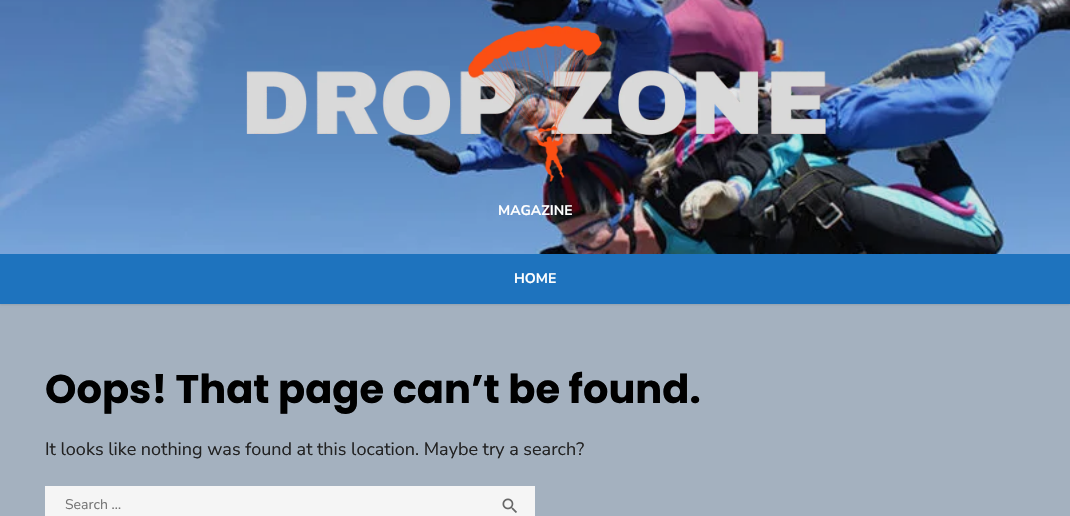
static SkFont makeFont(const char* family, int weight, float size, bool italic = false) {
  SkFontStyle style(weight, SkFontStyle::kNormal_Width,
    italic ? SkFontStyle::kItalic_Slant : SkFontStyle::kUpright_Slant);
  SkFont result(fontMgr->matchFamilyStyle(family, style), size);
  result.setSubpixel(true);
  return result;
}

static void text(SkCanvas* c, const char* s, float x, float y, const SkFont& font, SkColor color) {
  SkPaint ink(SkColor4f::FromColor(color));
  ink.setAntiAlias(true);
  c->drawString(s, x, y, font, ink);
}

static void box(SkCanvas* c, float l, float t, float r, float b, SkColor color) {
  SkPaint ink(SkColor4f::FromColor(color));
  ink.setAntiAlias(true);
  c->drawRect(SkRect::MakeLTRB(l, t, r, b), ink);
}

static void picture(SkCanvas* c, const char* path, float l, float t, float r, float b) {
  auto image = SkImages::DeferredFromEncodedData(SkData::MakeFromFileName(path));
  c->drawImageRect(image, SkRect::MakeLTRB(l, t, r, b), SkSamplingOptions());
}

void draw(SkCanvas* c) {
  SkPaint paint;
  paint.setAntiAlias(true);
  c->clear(0xffa4b1bf);
  paint.setColor(0x1a000000);
  paint.setMaskFilter(SkMaskFilter::MakeBlur(kNormal_SkBlurStyle, 1));
  c->drawRect(SkRect::MakeLTRB(0, 255, 1070, 305), paint);
  paint.setMaskFilter(nullptr);
  picture(c, "img_01.png", 0, 0, 1070, 254);
  picture(c, "img_02.png", 246, 25, 826, 182);
  SkFont face1 = makeFont("Nunito Sans", 700, 14);
  text(c, "MAGAZINE", 498, 215, face1, 0xffffffff);
  box(c, 0, 254, 1070, 304, 0xff1e73be);
  text(c, "HOME", 514, 283, face1, 0xffffffff);
  SkFont face2 = makeFont("Poppins", 700, 40);
  text(c, "Oops! That page can’t be found.", 45, 403, face2, 0xff000000);
  SkFont face3 = makeFont("Nunito Sans", 400, 18);
  text(c, "It looks like nothing was found at this location. Maybe try a search?", 45, 455, face3, 0xff222222);
  box(c, 45, 486, 535, 516, 0xfff5f5f5);
  SkFont face4 = makeFont("Nunito Sans", 400, 14);
  text(c, "Search …", 65, 509, face4, 0xff757575);
  picture(c, "img_03.png", 502, 498, 517, 513);
}
